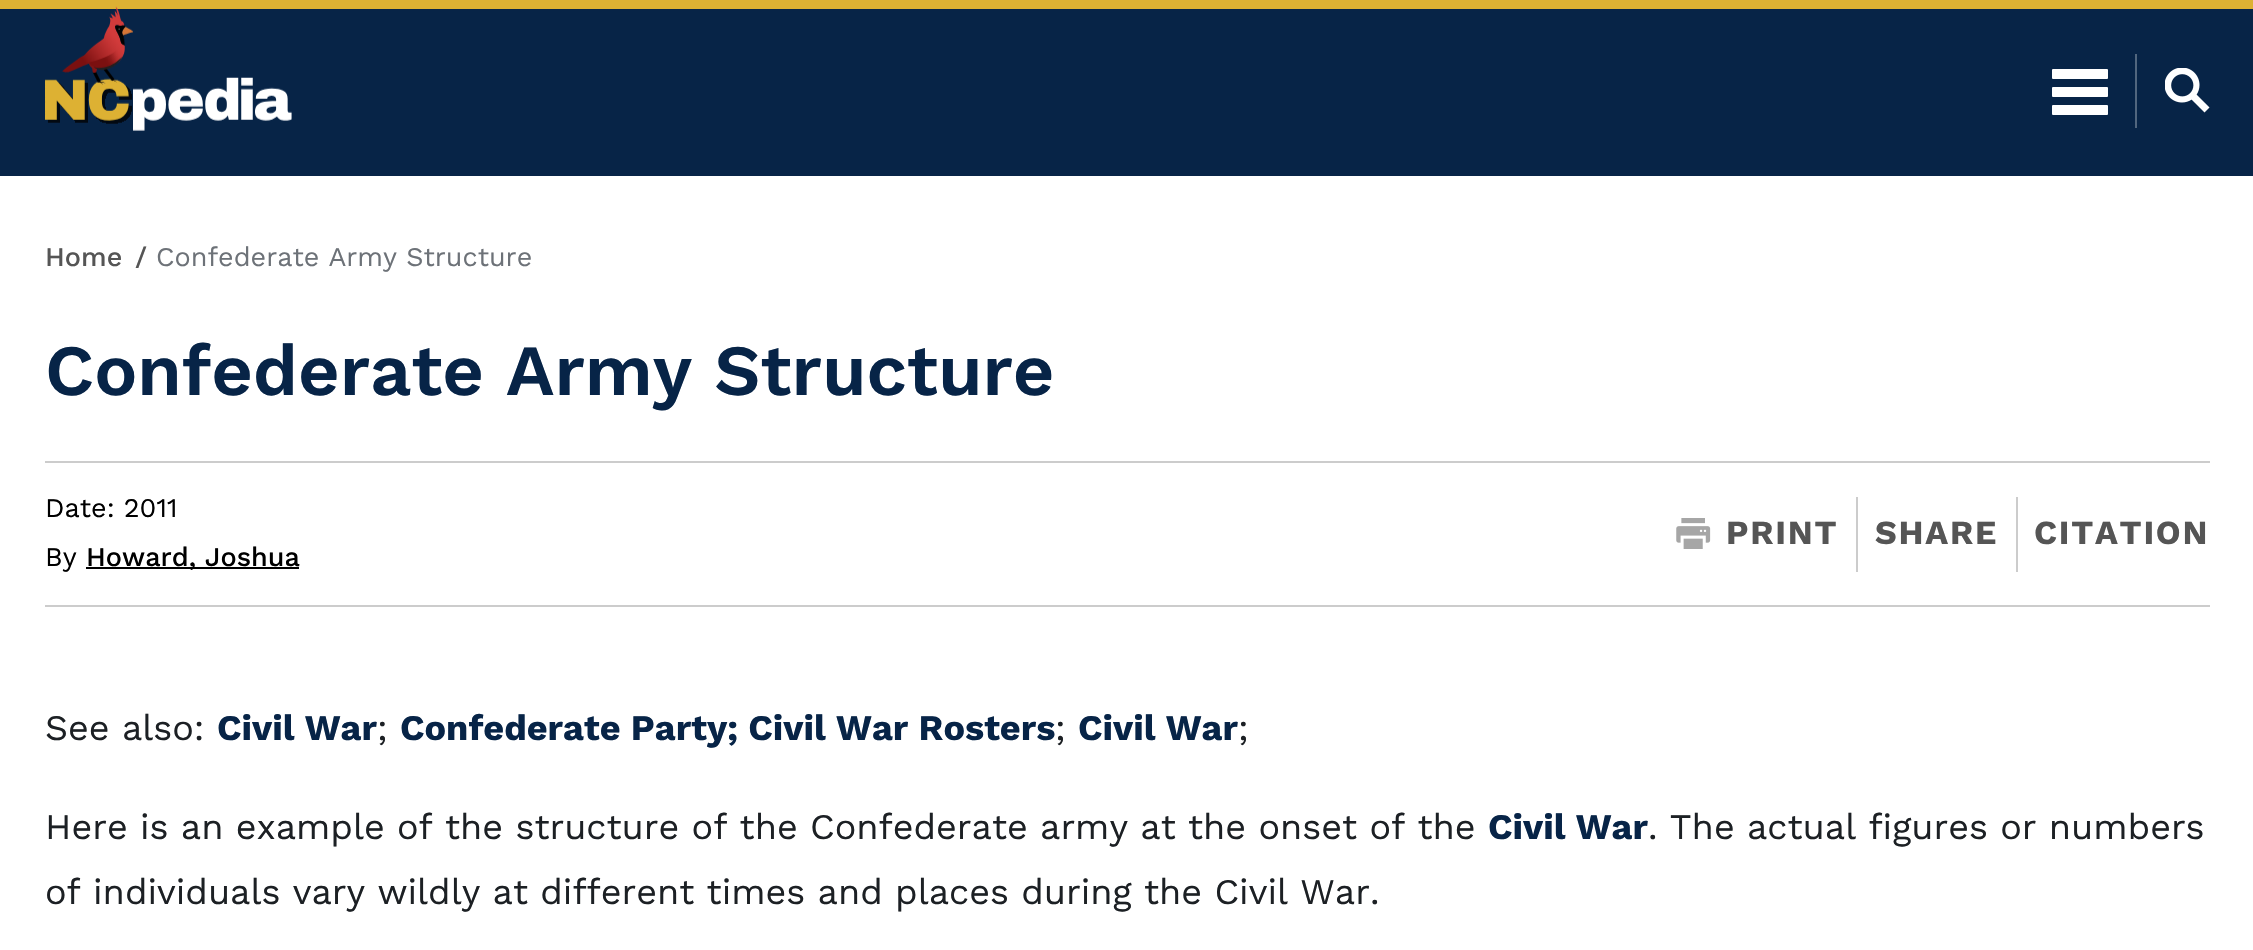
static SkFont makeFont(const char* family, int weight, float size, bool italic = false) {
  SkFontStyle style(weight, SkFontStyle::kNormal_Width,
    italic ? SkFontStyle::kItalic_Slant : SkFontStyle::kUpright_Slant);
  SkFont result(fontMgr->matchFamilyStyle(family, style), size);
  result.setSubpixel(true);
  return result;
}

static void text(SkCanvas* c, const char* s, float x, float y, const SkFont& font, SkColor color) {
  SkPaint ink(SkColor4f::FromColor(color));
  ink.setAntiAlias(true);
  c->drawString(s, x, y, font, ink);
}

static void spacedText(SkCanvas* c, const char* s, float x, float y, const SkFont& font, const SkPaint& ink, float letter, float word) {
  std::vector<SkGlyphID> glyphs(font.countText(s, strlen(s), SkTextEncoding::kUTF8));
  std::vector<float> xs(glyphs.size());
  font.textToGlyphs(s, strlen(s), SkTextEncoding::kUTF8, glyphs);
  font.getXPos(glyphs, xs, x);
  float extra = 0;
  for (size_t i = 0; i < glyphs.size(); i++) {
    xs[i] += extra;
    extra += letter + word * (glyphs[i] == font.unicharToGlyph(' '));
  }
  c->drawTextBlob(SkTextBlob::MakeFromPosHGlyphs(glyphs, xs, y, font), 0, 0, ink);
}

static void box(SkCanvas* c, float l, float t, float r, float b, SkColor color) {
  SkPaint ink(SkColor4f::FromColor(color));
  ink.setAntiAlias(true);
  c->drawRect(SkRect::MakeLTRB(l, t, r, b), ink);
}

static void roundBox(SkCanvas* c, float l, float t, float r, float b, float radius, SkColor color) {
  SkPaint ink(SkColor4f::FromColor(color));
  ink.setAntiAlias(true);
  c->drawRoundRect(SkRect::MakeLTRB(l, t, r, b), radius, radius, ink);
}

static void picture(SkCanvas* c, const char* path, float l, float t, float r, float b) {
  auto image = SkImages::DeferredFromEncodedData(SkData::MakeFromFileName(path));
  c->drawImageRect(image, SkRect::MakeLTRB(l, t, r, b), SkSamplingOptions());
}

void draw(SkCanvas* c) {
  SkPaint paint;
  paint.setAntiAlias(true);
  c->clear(0xffffffff);
  box(c, 0, 9, 2253, 176, 0xff072447);
  box(c, 0, 0, 2253, 9, 0xffddb133);
  picture(c, "img_01.png", 45, 6, 292, 131);
  roundBox(c, 2052, 69, 2108, 79, 1, 0xffffffff);
  roundBox(c, 2052, 87, 2108, 97, 1, 0xffffffff);
  roundBox(c, 2052, 105, 2108, 115, 1, 0xffffffff);
  box(c, 2135, 54, 2137, 128, 0xff51667e);
  picture(c, "img_02.png", 2165, 68, 2210, 113);
  SkFont face1 = makeFont("Work Sans", 500, 27);
  text(c, "Home", 45, 266, face1, 0xff555555);
  text(c, "/", 135, 266, face1, 0xff555555);
  SkFont face2 = makeFont("Work Sans", 400, 27);
  text(c, "Confederate Army Structure", 156, 266, face2, 0xff6d7278);
  SkFont face3 = makeFont("Work Sans", 600, 72);
  text(c, "Confederate Army Structure", 45, 395, face3, 0xff072447);
  box(c, 45, 461, 2210, 463, 0xffcccccc);
  box(c, 45, 605, 2210, 607, 0xffcccccc);
  text(c, "Date: 2011", 45, 517, face2, 0xff000000);
  text(c, "By", 45, 566, face2, 0xff000000);
  box(c, 86, 567, 299, 569, 0xff000000);
  text(c, "Howard, Joshua", 86, 566, face1, 0xff000000);
  picture(c, "img_03.png", 1676, 518, 1711, 549);
  SkFont face4 = makeFont("Work Sans", 700, 33.75f);
  paint.setColor(0xff555555);
  spacedText(c, "PRINT", 1726, 544, face4, paint, 1.75f, 0);
  box(c, 1856, 497, 1858, 572, 0xffcccccc);
  spacedText(c, "SHARE", 1875, 544, face4, paint, 1.75f, 0);
  box(c, 2016, 497, 2018, 572, 0xffcccccc);
  spacedText(c, "CITATION", 2034, 544, face4, paint, 1.75f, 0);
  SkFont face5 = makeFont("Work Sans", 400, 36);
  text(c, "See also:", 45, 740, face5, 0xff1c2024);
  SkFont face6 = makeFont("Work Sans", 700, 36);
  text(c, "Civil War", 217, 740, face6, 0xff072447);
  text(c, ";", 377, 740, face5, 0xff1c2024);
  text(c, "Confederate Party; Civil War Rosters", 400, 740, face6, 0xff072447);
  text(c, ";", 1055, 740, face5, 0xff1c2024);
  text(c, "Civil War", 1078, 740, face6, 0xff072447);
  text(c, ";", 1238, 740, face5, 0xff1c2024);
  text(c, "Here is an example of the structure of the Confederate army at the onset of the", 45, 839, face5, 0xff1c2024);
  text(c, "Civil War", 1488, 839, face6, 0xff072447);
  text(c, ". The actual figures or numbers", 1648, 839, face5, 0xff1c2024);
  text(c, "of individuals vary wildly at different times and places during the Civil War.", 45, 904, face5, 0xff1c2024);
}
